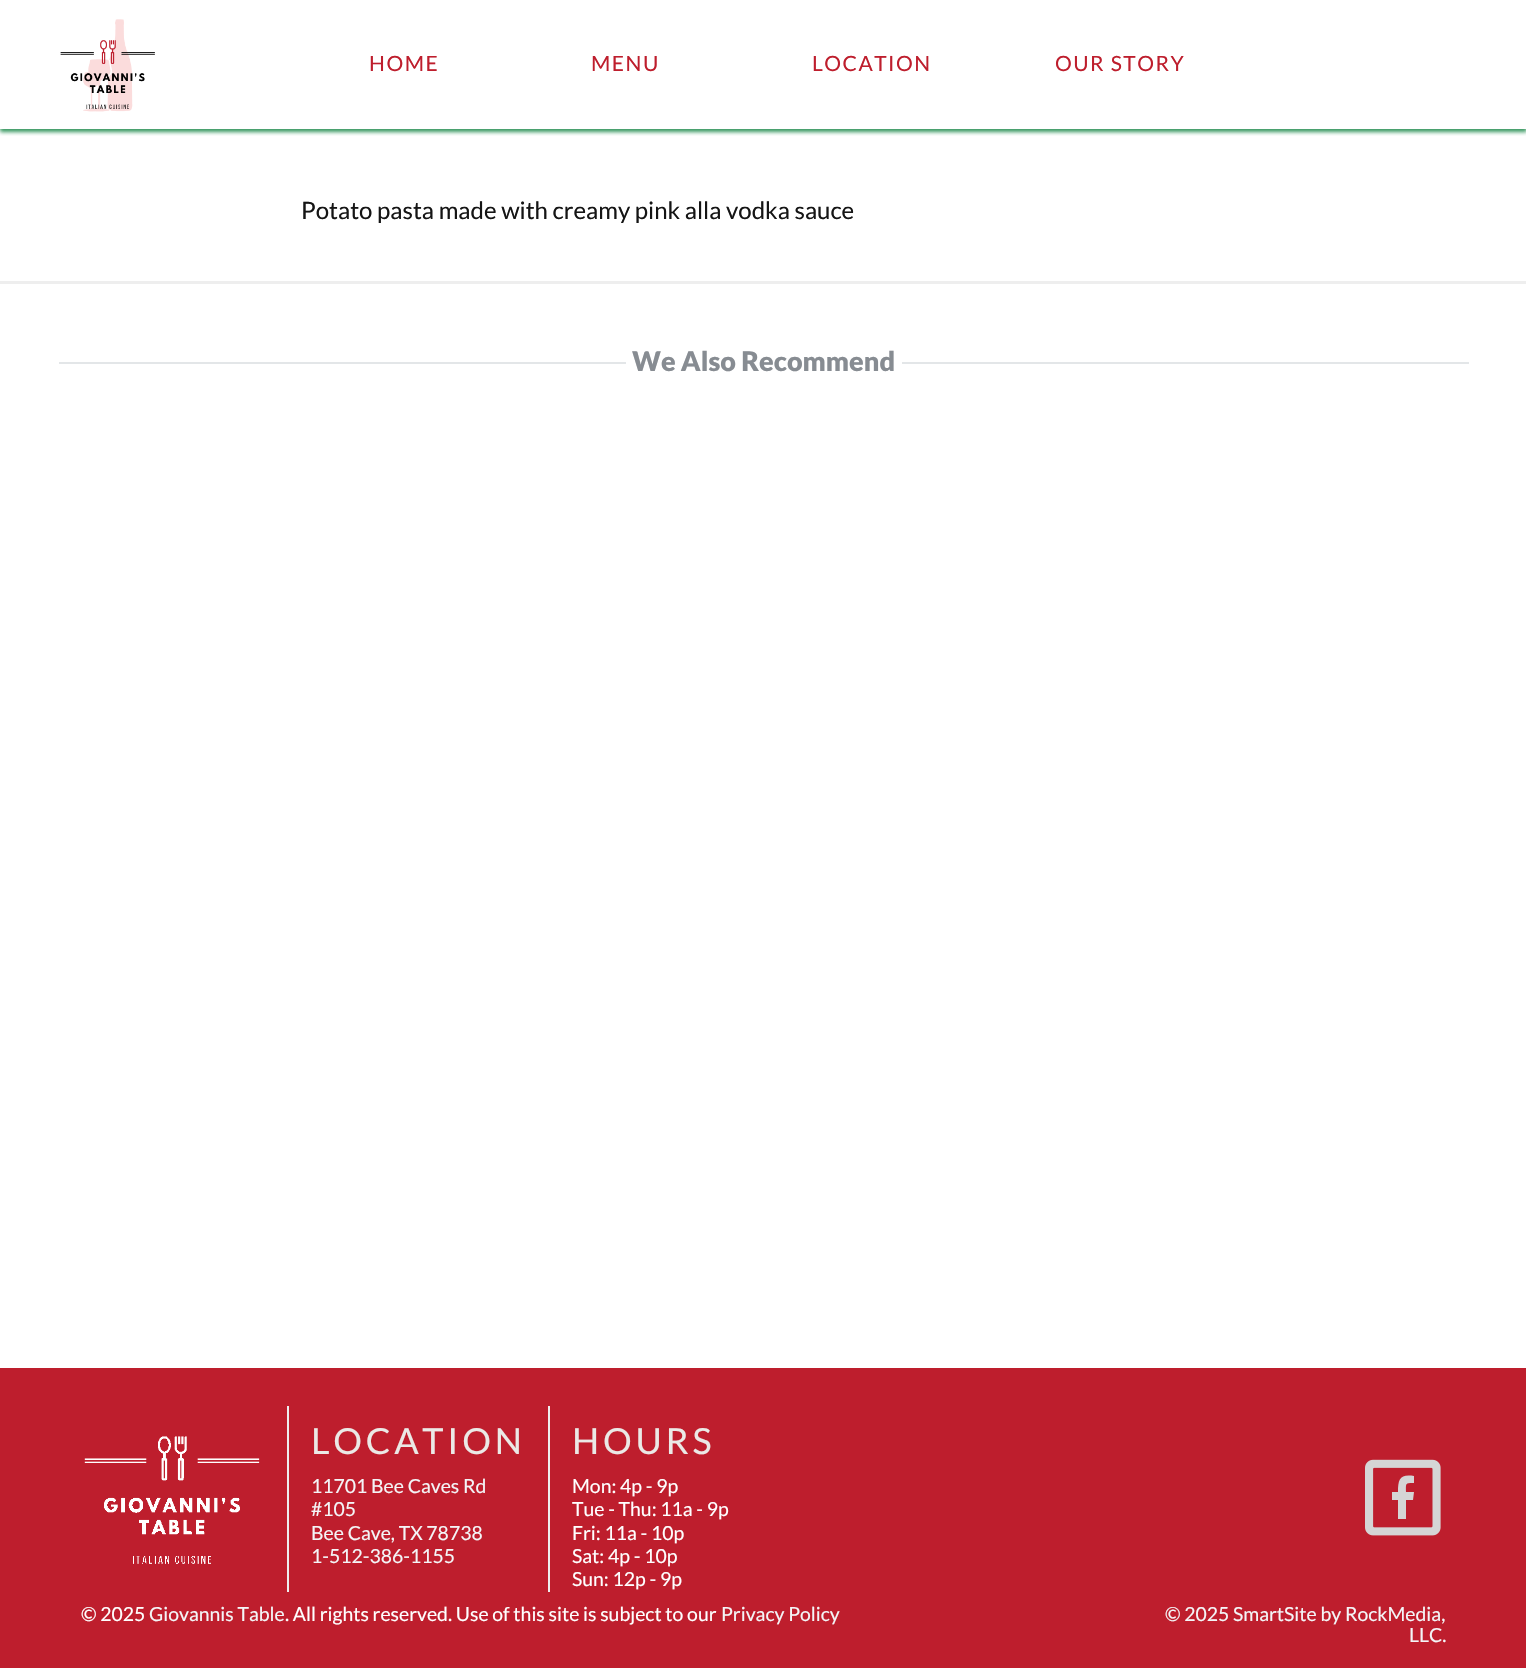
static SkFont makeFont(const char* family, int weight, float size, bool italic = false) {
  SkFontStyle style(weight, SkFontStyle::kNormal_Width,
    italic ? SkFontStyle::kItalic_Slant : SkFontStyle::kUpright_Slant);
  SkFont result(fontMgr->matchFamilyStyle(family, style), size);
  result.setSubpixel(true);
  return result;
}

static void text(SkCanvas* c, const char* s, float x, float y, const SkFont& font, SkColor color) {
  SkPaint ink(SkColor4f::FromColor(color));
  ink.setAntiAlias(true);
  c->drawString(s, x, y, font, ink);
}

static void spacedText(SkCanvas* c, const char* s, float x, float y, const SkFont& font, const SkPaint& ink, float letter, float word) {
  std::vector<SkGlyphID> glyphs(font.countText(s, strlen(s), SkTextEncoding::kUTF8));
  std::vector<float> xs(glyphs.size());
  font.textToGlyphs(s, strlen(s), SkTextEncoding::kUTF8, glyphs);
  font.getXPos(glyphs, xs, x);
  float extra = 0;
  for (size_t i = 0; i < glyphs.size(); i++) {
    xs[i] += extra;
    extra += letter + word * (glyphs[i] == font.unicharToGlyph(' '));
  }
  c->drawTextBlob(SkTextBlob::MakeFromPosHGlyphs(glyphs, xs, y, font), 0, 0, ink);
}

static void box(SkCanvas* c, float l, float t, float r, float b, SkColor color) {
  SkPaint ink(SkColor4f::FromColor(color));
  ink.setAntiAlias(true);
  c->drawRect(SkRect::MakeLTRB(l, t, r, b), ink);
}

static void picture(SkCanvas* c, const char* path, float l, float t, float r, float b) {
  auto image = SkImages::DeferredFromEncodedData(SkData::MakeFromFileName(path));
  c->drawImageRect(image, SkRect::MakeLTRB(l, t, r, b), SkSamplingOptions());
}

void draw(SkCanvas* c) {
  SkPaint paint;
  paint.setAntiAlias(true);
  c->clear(0xffffffff);
  c->save();
  c->clipRect(SkRect::MakeLTRB(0, 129, 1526, 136));
  paint.setColor(0xcc007a33);
  paint.setMaskFilter(SkMaskFilter::MakeBlur(kNormal_SkBlurStyle, 2));
  c->drawRect(SkRect::MakeLTRB(0, 3, 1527, 132), paint);
  paint.setMaskFilter(nullptr);
  c->restore();
  picture(c, "img_01.png", 60, 19, 155, 112);
  SkFont face1 = makeFont("Lato", 400, 21);
  paint.setColor(0xffbe1e2d);
  spacedText(c, "HOME", 369, 71, face1, paint, 1.5f, 0);
  spacedText(c, "MENU", 591, 71, face1, paint, 1.5f, 0);
  spacedText(c, "LOCATION", 812, 71, face1, paint, 1.5f, 0);
  spacedText(c, "OUR STORY", 1055, 71, face1, paint, 1.5f, 0);
  SkFont face2 = makeFont("Lato", 400, 24);
  text(c, "Potato pasta made with creamy pink alla vodka sauce", 301, 219, face2, 0xff151515);
  box(c, 0, 281, 1526, 284, 0xffeeeeee);
  box(c, 59, 362, 626, 364, 0xffe3e6e8);
  SkFont face3 = makeFont("Lato", 900, 27);
  text(c, "We Also Recommend", 632, 371, face3, 0xff878c92);
  box(c, 902, 362, 1469, 364, 0xffe3e6e8);
  box(c, 0, 1368, 1526, 1668, 0xffbe1e2d);
  picture(c, "img_02.png", 84, 1436, 260, 1564);
  box(c, 287, 1406, 289, 1592, 0xffeeeeee);
  SkFont face4 = makeFont("Lato", 400, 36);
  paint.setColor(0xffebe9e6);
  spacedText(c, "LOCATION", 311, 1454, face4, paint, 3.75f, 0);
  SkFont face5 = makeFont("Lato", 400, 19.4f);
  text(c, "11701 Bee Caves Rd", 311, 1493, face5, 0xfff4f5f7);
  text(c, "#105", 311, 1516, face5, 0xfff4f5f7);
  text(c, "Bee Cave, TX 78738", 311, 1540, face5, 0xfff4f5f7);
  text(c, "1-512-386-1155", 311, 1563, face5, 0xfff4f5f7);
  box(c, 548, 1406, 550, 1592, 0xffeeeeee);
  spacedText(c, "HOURS", 572, 1454, face4, paint, 3.75f, 0);
  text(c, "Mon: 4p - 9p", 572, 1493, face5, 0xffffffff);
  text(c, "Tue - Thu: 11a - 9p", 572, 1516, face5, 0xffffffff);
  text(c, "Fri: 11a - 10p", 572, 1540, face5, 0xffffffff);
  text(c, "Sat: 4p - 10p", 572, 1563, face5, 0xffffffff);
  text(c, "Sun: 12p - 9p", 572, 1586, face5, 0xffffffff);
  picture(c, "img_03.png", 1365, 1459, 1441, 1536);
  paint.setColor(0xffd5d5d5);
  c->drawPath(SkPathBuilder().moveTo(1398, 1519).lineTo(1398, 1500).lineTo(1392, 1500).lineTo(1392, 1492).lineTo(1398, 1492).cubicTo(1398, 1479, 1400, 1474, 1414, 1476).lineTo(1414, 1483).cubicTo(1405, 1483, 1406, 1483, 1406, 1492).lineTo(1414, 1492).lineTo(1413, 1500).lineTo(1406, 1500).lineTo(1406, 1519).close().detach(), paint);
  text(c, "© 2025", 81, 1621, face5, 0xffffffff);
  text(c, "Giovannis Table", 149, 1621, face5, 0xfff4f5f7);
  text(c, ". All rights reserved. Use of this site is subject to our", 285, 1621, face5, 0xffffffff);
  text(c, "Privacy Policy", 721, 1621, face5, 0xfff4f5f7);
  text(c, "© 2025 SmartSite by RockMedia,", 1165, 1621, face5, 0xfff4f5f7);
  text(c, "LLC.", 1409, 1642, face5, 0xfff4f5f7);
}
